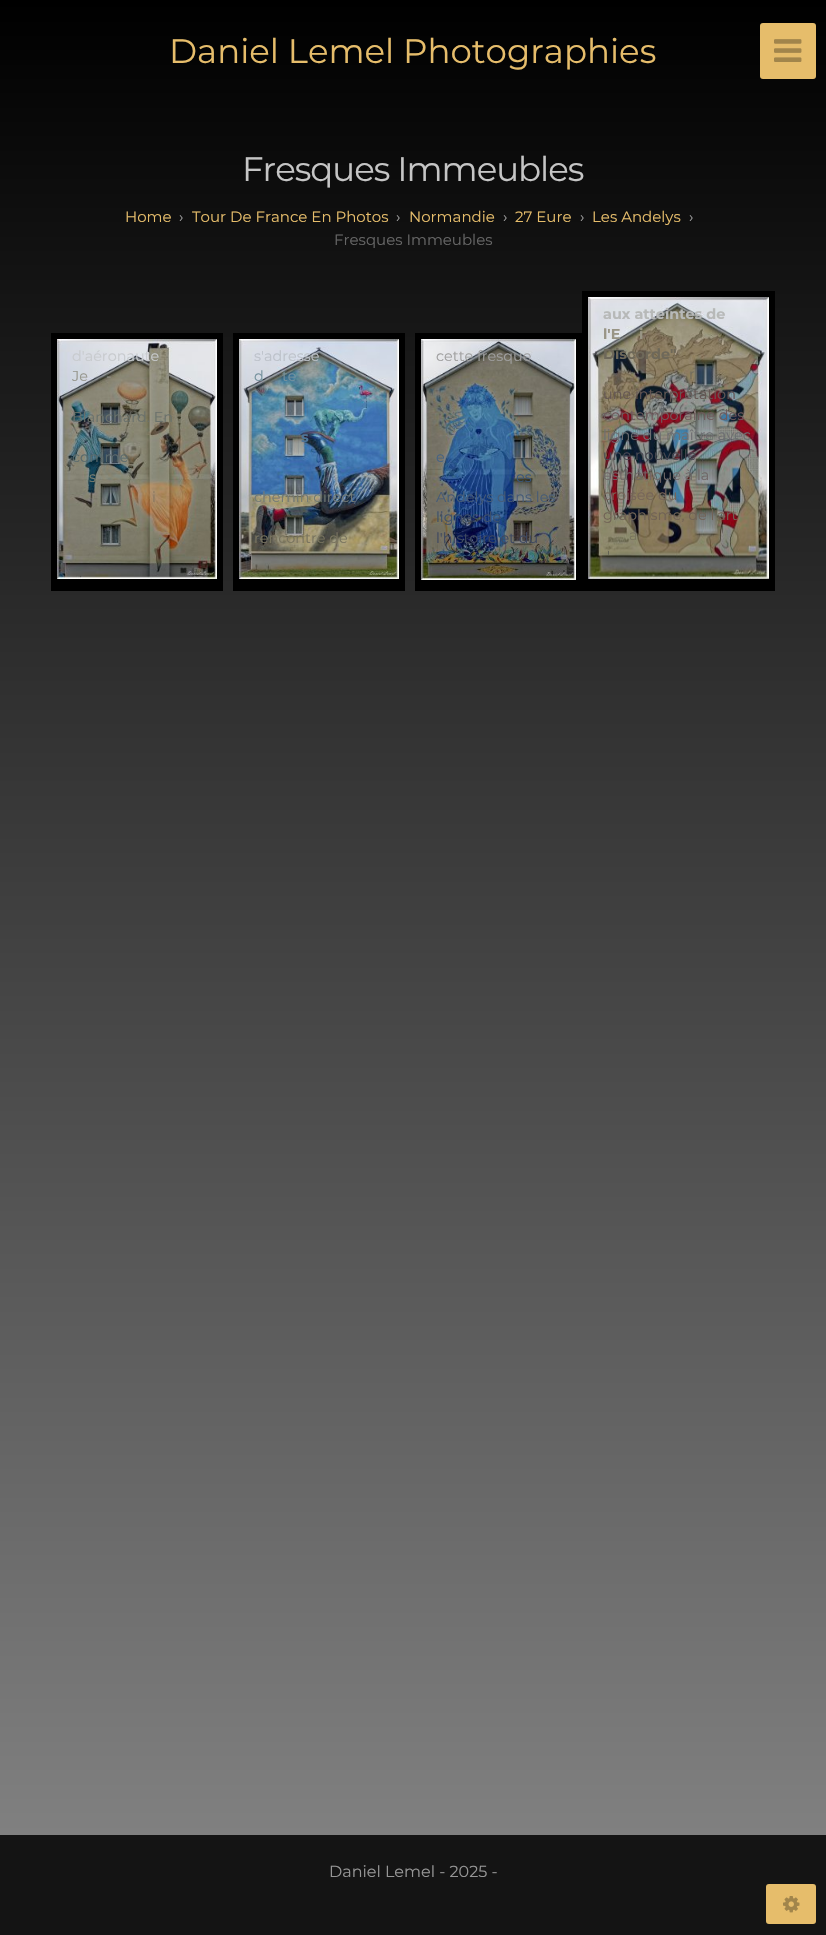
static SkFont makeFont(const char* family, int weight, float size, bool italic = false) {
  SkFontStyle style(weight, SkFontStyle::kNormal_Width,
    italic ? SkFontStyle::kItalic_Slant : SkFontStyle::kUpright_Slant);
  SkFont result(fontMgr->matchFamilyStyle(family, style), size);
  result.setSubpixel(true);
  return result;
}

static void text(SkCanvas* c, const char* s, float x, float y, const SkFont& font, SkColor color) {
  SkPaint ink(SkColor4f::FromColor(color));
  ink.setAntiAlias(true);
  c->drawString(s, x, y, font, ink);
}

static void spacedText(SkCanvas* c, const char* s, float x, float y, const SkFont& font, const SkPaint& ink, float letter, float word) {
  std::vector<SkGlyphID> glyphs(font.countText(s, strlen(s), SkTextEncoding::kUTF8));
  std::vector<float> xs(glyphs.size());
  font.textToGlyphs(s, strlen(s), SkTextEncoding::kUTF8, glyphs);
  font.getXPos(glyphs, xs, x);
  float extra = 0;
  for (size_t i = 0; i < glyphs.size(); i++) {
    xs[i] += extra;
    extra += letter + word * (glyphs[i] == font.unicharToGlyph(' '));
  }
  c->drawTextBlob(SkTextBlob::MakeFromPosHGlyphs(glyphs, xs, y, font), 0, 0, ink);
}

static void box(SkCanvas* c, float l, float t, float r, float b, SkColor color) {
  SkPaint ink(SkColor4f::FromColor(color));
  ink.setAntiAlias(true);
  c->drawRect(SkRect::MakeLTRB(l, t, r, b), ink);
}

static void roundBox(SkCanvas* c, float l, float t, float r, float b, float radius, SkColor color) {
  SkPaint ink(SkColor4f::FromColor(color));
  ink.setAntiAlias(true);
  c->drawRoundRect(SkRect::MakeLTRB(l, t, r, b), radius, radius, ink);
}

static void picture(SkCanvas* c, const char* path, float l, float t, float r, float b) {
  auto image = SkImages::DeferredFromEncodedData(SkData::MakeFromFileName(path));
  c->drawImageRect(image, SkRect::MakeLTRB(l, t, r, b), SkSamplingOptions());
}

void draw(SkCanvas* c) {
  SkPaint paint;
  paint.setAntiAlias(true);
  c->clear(0xff141414);
  {
    const SkColor colors[] = {0xff000000, 0xff808080};
    const float stops[] = {0, 1};
    const SkPoint ends[] = {{413, 0}, {413, 1835}};
    paint.setShader(SkGradientShader::MakeLinear(ends, colors, stops, 2, SkTileMode::kClamp));
    paint.setAlpha(255);
  }
  c->drawRect(SkRect::MakeLTRB(0, 0, 826, 1835), paint);
  SkFont face1 = makeFont("Montserrat", 100, 34);
  text(c, "Daniel Lemel Photographies", 169, 63, face1, 0xffe6bd6b);
  paint.setShader(nullptr);
  paint.setColor(0xffc5c5c5);
  spacedText(c, "Fresques Immeubles", 242, 181, face1, paint, -1, 0);
  SkFont face2 = makeFont("Montserrat", 100, 15);
  text(c, "Home", 125, 222, face2, 0xffe6bd6b);
  text(c, "›", 179, 222, face2, 0xff9f9f9f);
  text(c, "Tour De France En Photos", 192, 222, face2, 0xffe6bd6b);
  text(c, "›", 396, 222, face2, 0xff9f9f9f);
  text(c, "Normandie", 409, 222, face2, 0xffe6bd6b);
  text(c, "›", 503, 222, face2, 0xff9f9f9f);
  text(c, "27 Eure", 515, 222, face2, 0xffe6bd6b);
  text(c, "›", 580, 222, face2, 0xff9f9f9f);
  text(c, "Les Andelys", 592, 222, face2, 0xffe6bd6b);
  text(c, "›", 689, 222, face2, 0xff9f9f9f);
  text(c, "Fresques Immeubles", 334, 245, face2, 0xff666666);
  box(c, 51, 333, 223, 591, 0xff000000);
  picture(c, "img_01.png", 57, 339, 217, 579);
  SkFont face3 = makeFont("Montserrat", 100, 14.4f);
  text(c, "d'aéronaute", 72, 361, face3, 0xffc8cbce);
  text(c, "Je", 72, 381, face3, 0xff96968d);
  text(c, "-", 106, 381, face3, 0xff96968d);
  text(c, "Blanchard. En", 72, 422, face3, 0xff6a716b);
  text(c, "comme", 72, 462, face3, 0xff5a6a6c);
  text(c, "s", 89, 482, face3, 0xff7f7f70);
  text(c, "i", 152, 502, face3, 0xff887760);
  box(c, 233, 333, 405, 591, 0xff000000);
  picture(c, "img_02.png", 239, 339, 399, 579);
  text(c, "s'adresse", 254, 361, face3, 0xffbdc2ca);
  text(c, "d", 254, 381, face3, 0xff76929e);
  text(c, "te", 282, 381, face3, 0xff76929e);
  text(c, ".", 339, 422, face3, 0xff5e8a9e);
  SkFont face4 = makeFont("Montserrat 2", 100, 14.4f);
  text(c, "s", 301, 442, face4, 0xff4d7498);
  text(c, "chemin direct", 254, 502, face3, 0xff737a75);
  text(c, "rencontre de", 254, 543, face3, 0xff78735e);
  box(c, 415, 333, 582, 591, 0xff000000);
  picture(c, "img_03.png", 421, 339, 576, 580);
  text(c, "cette fresque", 436, 361, face3, 0xff9f9f9f);
  text(c, "e", 436, 462, face3, 0xff456383);
  text(c, "es", 516, 482, face3, 0xff38567c);
  text(c, "Andelys dans les", 436, 502, face3, 0xff465b76);
  text(c, "lignes de", 436, 522, face3, 0xff3e506b);
  text(c, "l'histoire et du", 436, 543, face3, 0xff3e4860);
  box(c, 582, 291, 775, 591, 0xff000000);
  picture(c, "img_04.png", 588, 297, 769, 579);
  text(c, "aux atteintes de", 603, 319, face4, 0xffb7b9b8);
  text(c, "l'E", 603, 339, face4, 0xff999585);
  text(c, "i", 639, 339, face4, 0xff999585);
  text(c, "Discorde\"", 603, 359, face4, 0xff6e6859);
  text(c, "r", 689, 379, face3, 0xff716d5f);
  text(c, "une interprétation", 603, 399, face3, 0xff645653);
  text(c, "contemporaine des", 603, 420, face3, 0xff6e5a5c);
  text(c, "ligne du maître avec", 603, 440, face3, 0xff6c6d71);
  text(c, "une nouvelle", 603, 460, face3, 0xff484851);
  text(c, "esthétique à la", 603, 480, face3, 0xff6f6767);
  text(c, "croisée du", 603, 500, face3, 0xff766559);
  text(c, "graphisme, de l'art", 603, 520, face3, 0xff706255);
  text(c, "a", 629, 540, face3, 0xff78735e);
  text(c, "'", 607, 561, face3, 0xff605f53);
  roundBox(c, 760, 23, 816, 79, 3, 0xffe6bd6b);
  picture(c, "img_05.png", 774, 39, 802, 62);
  SkFont face5 = makeFont("Montserrat", 100, 16);
  text(c, "Daniel Lemel - 2025 -", 329, 1877, face5, 0xff969696);
  roundBox(c, 766, 1884, 816, 1924, 3, 0xffe6bd6b);
  picture(c, "img_06.png", 783, 1896, 800, 1913);
}
